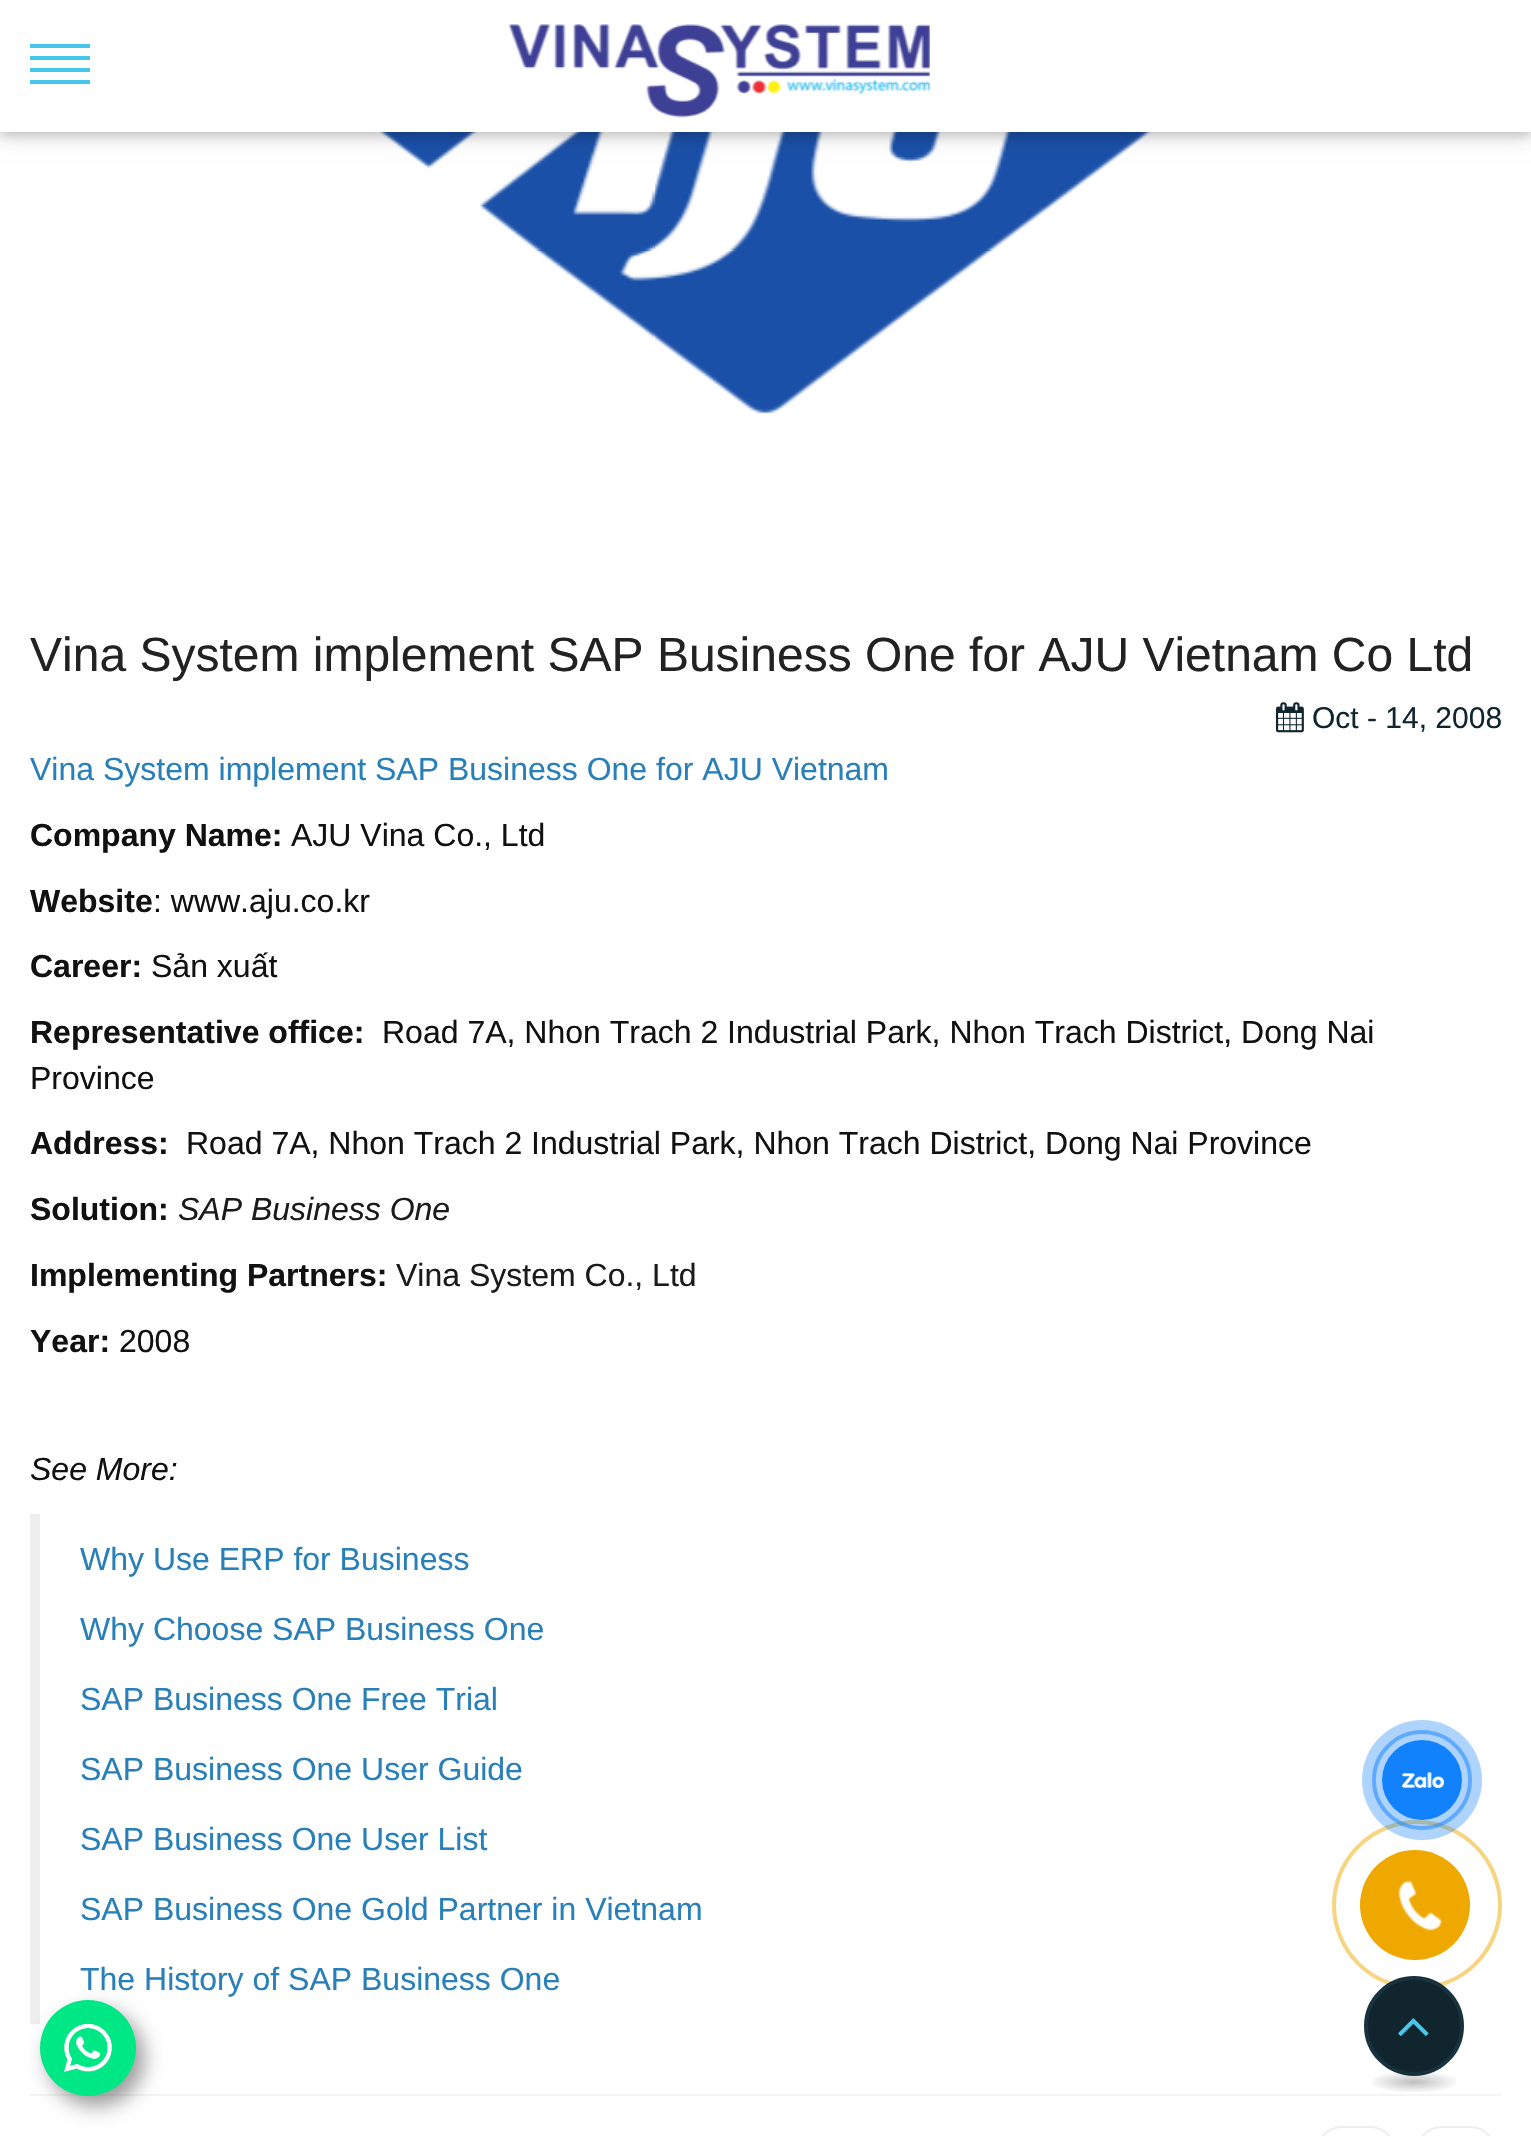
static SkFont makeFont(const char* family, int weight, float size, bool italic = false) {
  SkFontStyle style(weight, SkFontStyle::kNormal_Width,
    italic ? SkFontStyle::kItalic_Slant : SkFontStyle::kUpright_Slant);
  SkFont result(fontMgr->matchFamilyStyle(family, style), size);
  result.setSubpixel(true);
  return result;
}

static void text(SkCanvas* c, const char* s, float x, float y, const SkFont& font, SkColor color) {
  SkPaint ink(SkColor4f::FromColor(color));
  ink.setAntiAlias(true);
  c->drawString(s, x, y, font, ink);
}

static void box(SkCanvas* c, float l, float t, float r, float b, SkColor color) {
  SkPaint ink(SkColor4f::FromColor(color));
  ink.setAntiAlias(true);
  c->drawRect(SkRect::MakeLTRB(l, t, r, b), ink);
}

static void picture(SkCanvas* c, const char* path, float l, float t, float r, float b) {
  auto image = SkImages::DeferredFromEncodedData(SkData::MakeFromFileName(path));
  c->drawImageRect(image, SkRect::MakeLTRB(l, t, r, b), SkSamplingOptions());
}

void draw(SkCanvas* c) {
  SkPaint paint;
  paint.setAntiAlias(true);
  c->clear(0xffffffff);
  picture(c, "img_02.png", 379, 132, 1151, 414);
  paint.setColor(0x1f000000);
  paint.setMaskFilter(SkMaskFilter::MakeBlur(kNormal_SkBlurStyle, 10));
  c->drawRect(SkRect::MakeLTRB(0, 4, 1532, 136), paint);
  paint.setMaskFilter(nullptr);
  paint.setColor(0x29000000);
  paint.setMaskFilter(SkMaskFilter::MakeBlur(kNormal_SkBlurStyle, 5));
  c->drawRect(SkRect::MakeLTRB(0, 4, 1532, 136), paint);
  paint.setMaskFilter(nullptr);
  box(c, 0, 0, 1531, 132, 0xffffffff);
  box(c, 30, 44, 90, 48, 0xff48c7ec);
  box(c, 30, 56, 90, 60, 0xff48c7ec);
  box(c, 30, 68, 90, 72, 0xff48c7ec);
  box(c, 30, 80, 90, 84, 0xff48c7ec);
  picture(c, "img_01.png", 509, 24, 930, 118);
  box(c, 30, 2094, 1502, 2096, 0xfff4f4f4);
  SkFont face1 = makeFont("Liberation Sans", 400, 48);
  text(c, "Vina System implement SAP Business One for AJU Vietnam Co Ltd", 30, 671, face1, 0xff222222);
  picture(c, "img_03.png", 1276, 702, 1304, 733);
  SkFont face2 = makeFont("Liberation Sans", 400, 30);
  text(c, "Oct - 14, 2008", 1312, 728, face2, 0xff10252e);
  SkFont face3 = makeFont("Liberation Sans", 400, 32);
  text(c, "Vina System implement SAP Business One for AJU Vietnam", 30, 780, face3, 0xff2980b9);
  SkFont face4 = makeFont("Liberation Sans", 700, 32);
  text(c, "Company Name:", 30, 846, face4, 0xff111111);
  text(c, "AJU Vina Co., Ltd", 291, 846, face3, 0xff111111);
  text(c, "Website", 30, 912, face4, 0xff111111);
  text(c, ": www.aju.co.kr", 153, 912, face3, 0xff111111);
  text(c, "Career:", 30, 977, face4, 0xff111111);
  text(c, "Sản xuất", 151, 977, face3, 0xff111111);
  text(c, "Representative office:", 30, 1043, face4, 0xff111111);
  text(c, "Road 7A, Nhon Trach 2 Industrial Park, Nhon Trach District, Dong Nai", 382, 1043, face3, 0xff111111);
  text(c, "Province", 30, 1089, face3, 0xff111111);
  text(c, "Address:", 30, 1154, face4, 0xff111111);
  text(c, "Road 7A, Nhon Trach 2 Industrial Park, Nhon Trach District, Dong Nai Province", 186, 1154, face3, 0xff111111);
  text(c, "Solution:", 30, 1220, face4, 0xff111111);
  SkFont face5 = makeFont("Liberation Sans", 400, 32, true);
  text(c, "SAP Business One", 178, 1220, face5, 0xff1b1b1b);
  text(c, "Implementing Partners:", 30, 1286, face4, 0xff111111);
  text(c, "Vina System Co., Ltd", 396, 1286, face3, 0xff1b1b1b);
  text(c, "Year:", 30, 1352, face4, 0xff111111);
  text(c, "2008", 119, 1352, face3, 0xff111111);
  text(c, "See More:", 30, 1480, face5, 0xff111111);
  box(c, 30, 1514, 40, 2024, 0xffeeeeee);
  text(c, "Why Use ERP for Business", 80, 1570, face3, 0xff2980b9);
  text(c, "Why Choose SAP Business One", 80, 1640, face3, 0xff2980b9);
  text(c, "SAP Business One Free Trial", 80, 1710, face3, 0xff2980b9);
  text(c, "SAP Business One User Guide", 80, 1780, face3, 0xff2980b9);
  text(c, "SAP Business One User List", 80, 1850, face3, 0xff2980b9);
  text(c, "SAP Business One Gold Partner in Vietnam", 80, 1920, face3, 0xff2980b9);
  text(c, "The History of SAP Business One", 80, 1990, face3, 0xff2980b9);
  paint.setStyle(SkPaint::kStroke_Style);
  paint.setStrokeWidth(2);
  paint.setColor(0xffeeeeee);
  c->drawRoundRect(SkRect::MakeLTRB(1317, 2127, 1395, 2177), 39, 39, paint);
  c->drawRoundRect(SkRect::MakeLTRB(1417, 2127, 1495, 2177), 39, 39, paint);
  paint.setStrokeWidth(4);
  paint.setColor(0xfff7d480);
  c->drawCircle(1417, 1905, 83, paint);
  paint.setColor(0x801182fc);
  c->drawCircle(1422, 1780, 48, paint);
  paint.setStyle(SkPaint::kFill_Style);
  paint.setColor(0x571182fc);
  c->drawCircle(1422, 1780, 60, paint);
  paint.setColor(0xff1182fc);
  c->drawCircle(1422, 1780, 40, paint);
  picture(c, "img_04.png", 1402, 1772, 1444, 1788);
  paint.setColor(0xffeea800);
  c->drawCircle(1415, 1905, 55, paint);
  picture(c, "img_05.png", 1398, 1880, 1442, 1931);
  paint.setColor(0x66000000);
  paint.setMaskFilter(SkMaskFilter::MakeBlur(kNormal_SkBlurStyle, 10));
  c->drawRoundRect(SkRect::MakeLTRB(48, 2010, 144, 2106), 48, 48, paint);
  paint.setMaskFilter(nullptr);
  paint.setColor(0xff00e785);
  c->drawCircle(88, 2048, 48, paint);
  picture(c, "img_06.png", 64, 2024, 112, 2072);
  paint.setColor(0xff10252e);
  c->drawCircle(1414, 2026, 48, paint);
  paint.setStyle(SkPaint::kStroke_Style);
  paint.setColor(0xff19333e);
  c->drawCircle(1414, 2026, 48, paint);
  picture(c, "img_07.png", 1398, 2018, 1429, 2036);
  paint.setStyle(SkPaint::kFill_Style);
  {
    const SkColor colors[] = {0x40000000, 0x00000000};
    const float stops[] = {0, 0.8f};
    SkMatrix m = SkMatrix::Translate(1414, 2082).preScale(59, 14);
    paint.setShader(SkGradientShader::MakeRadial({0, 0}, 1, colors, stops, 2, SkTileMode::kClamp, 0, &m));
    paint.setAlpha(255);
  }
  c->drawRect(SkRect::MakeLTRB(1372, 2072, 1456, 2092), paint);
}
